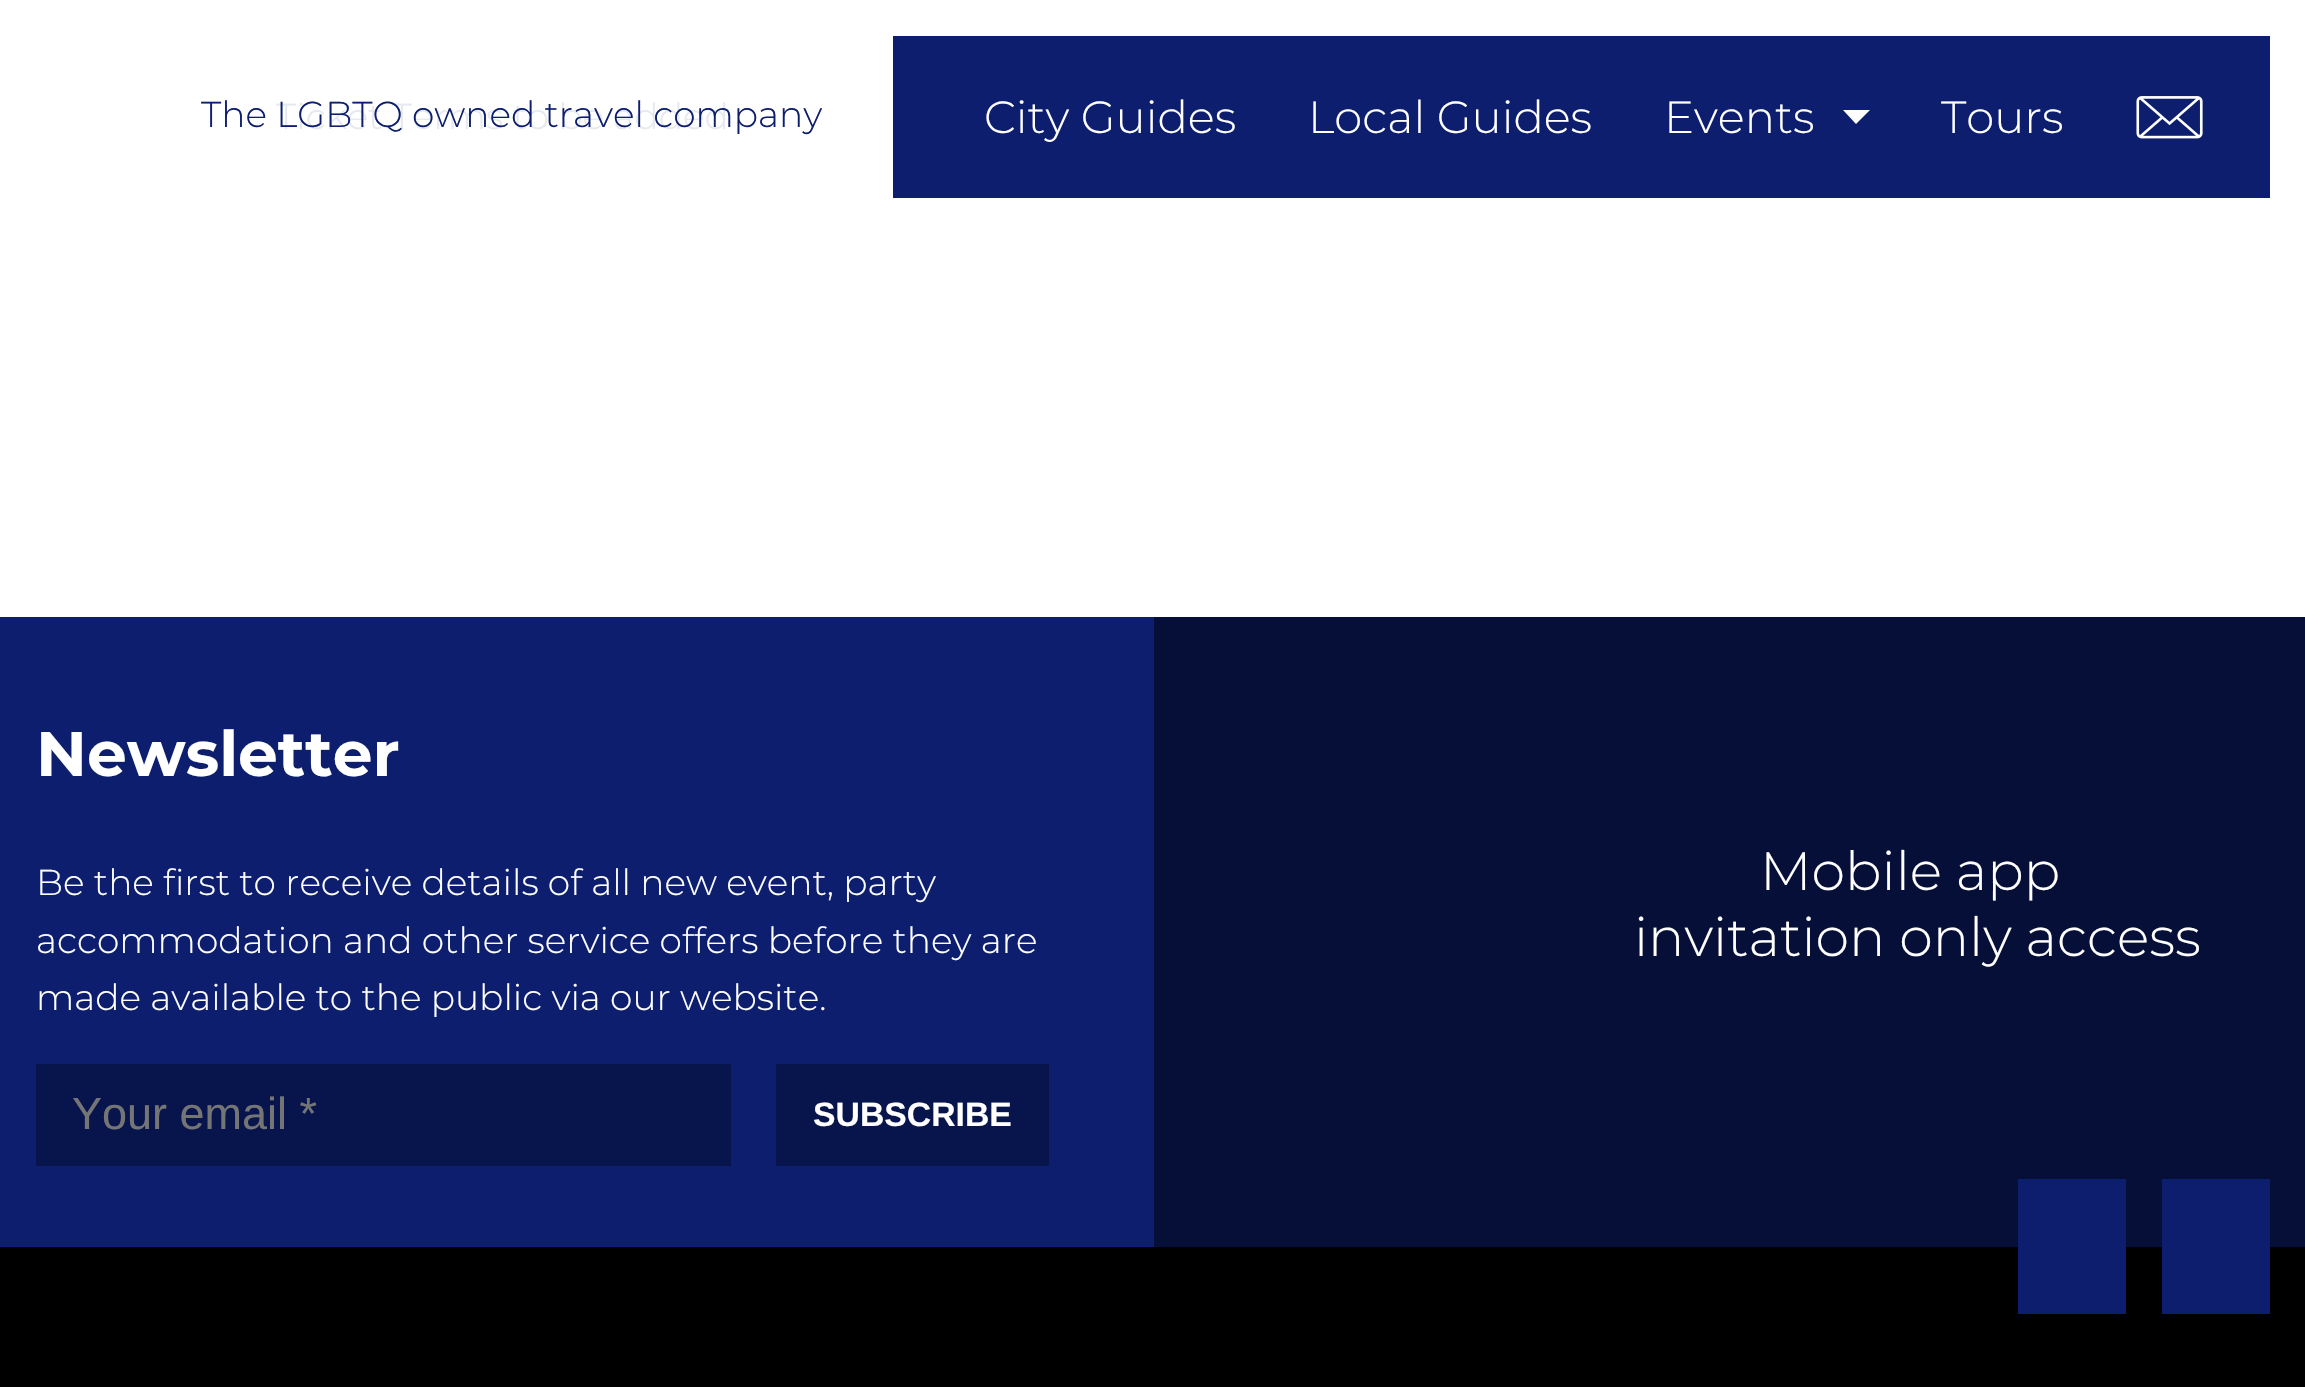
static SkFont makeFont(const char* family, int weight, float size, bool italic = false) {
  SkFontStyle style(weight, SkFontStyle::kNormal_Width,
    italic ? SkFontStyle::kItalic_Slant : SkFontStyle::kUpright_Slant);
  SkFont result(fontMgr->matchFamilyStyle(family, style), size);
  result.setSubpixel(true);
  return result;
}

static void text(SkCanvas* c, const char* s, float x, float y, const SkFont& font, SkColor color) {
  SkPaint ink(SkColor4f::FromColor(color));
  ink.setAntiAlias(true);
  c->drawString(s, x, y, font, ink);
}

static void box(SkCanvas* c, float l, float t, float r, float b, SkColor color) {
  SkPaint ink(SkColor4f::FromColor(color));
  ink.setAntiAlias(true);
  c->drawRect(SkRect::MakeLTRB(l, t, r, b), ink);
}

static void picture(SkCanvas* c, const char* path, float l, float t, float r, float b) {
  auto image = SkImages::DeferredFromEncodedData(SkData::MakeFromFileName(path));
  c->drawImageRect(image, SkRect::MakeLTRB(l, t, r, b), SkSamplingOptions());
}

void draw(SkCanvas* c) {
  SkPaint paint;
  paint.setAntiAlias(true);
  c->clear(0xffffffff);
  SkFont face1 = makeFont("Montserrat", 300, 36);
  text(c, "Ticket Terms to be added", 276, 129, face1, 0xffe7e9f0);
  text(c, "The LGBTQ owned travel company", 201, 127, face1, 0xff0c1e6d);
  box(c, 893, 36, 2270, 198, 0xff0c1e6d);
  SkFont face2 = makeFont("Montserrat", 300, 45);
  text(c, "City Guides", 984, 133, face2, 0xffffffff);
  text(c, "Local Guides", 1308, 133, face2, 0xffffffff);
  text(c, "Events", 1664, 133, face2, 0xffffffff);
  paint.setColor(0xffffffff);
  c->drawPath(SkPathBuilder().moveTo(1843, 110).lineTo(1870, 110).lineTo(1856, 124).close().detach(), paint);
  text(c, "Tours", 1941, 133, face2, 0xffffffff);
  picture(c, "img_01.png", 2136, 96, 2203, 139);
  box(c, 0, 1247, 2305, 1387, 0xff000000);
  box(c, 0, 617, 1154, 1247, 0xff0c1e6d);
  box(c, 1154, 617, 2305, 1247, 0xff060f37);
  SkFont face3 = makeFont("Montserrat", 700, 63);
  text(c, "Newsletter", 36, 776, face3, 0xffffffff);
  text(c, "Be the first to receive details of all new event, party", 36, 895, face1, 0xffffffff);
  text(c, "accommodation and other service offers before they are", 36, 953, face1, 0xffffffff);
  text(c, "made available to the public via our website.", 36, 1010, face1, 0xffffffff);
  box(c, 36, 1064, 731, 1166, 0xff08154c);
  SkFont face4 = makeFont("Liberation Sans", 400, 45);
  text(c, "Your email *", 72, 1129, face4, 0xff757575);
  box(c, 776, 1064, 1049, 1166, 0xff08154c);
  SkFont face5 = makeFont("Liberation Sans", 700, 33.75f);
  text(c, "SUBSCRIBE", 813, 1126, face5, 0xffffffff);
  SkFont face6 = makeFont("Montserrat", 300, 54);
  text(c, "Mobile app", 1760, 890, face6, 0xffffffff);
  text(c, "invitation only access", 1634, 956, face6, 0xffffffff);
  box(c, 2018, 1179, 2126, 1314, 0xff0c1e6d);
  box(c, 2162, 1179, 2270, 1314, 0xff0c1e6d);
}
